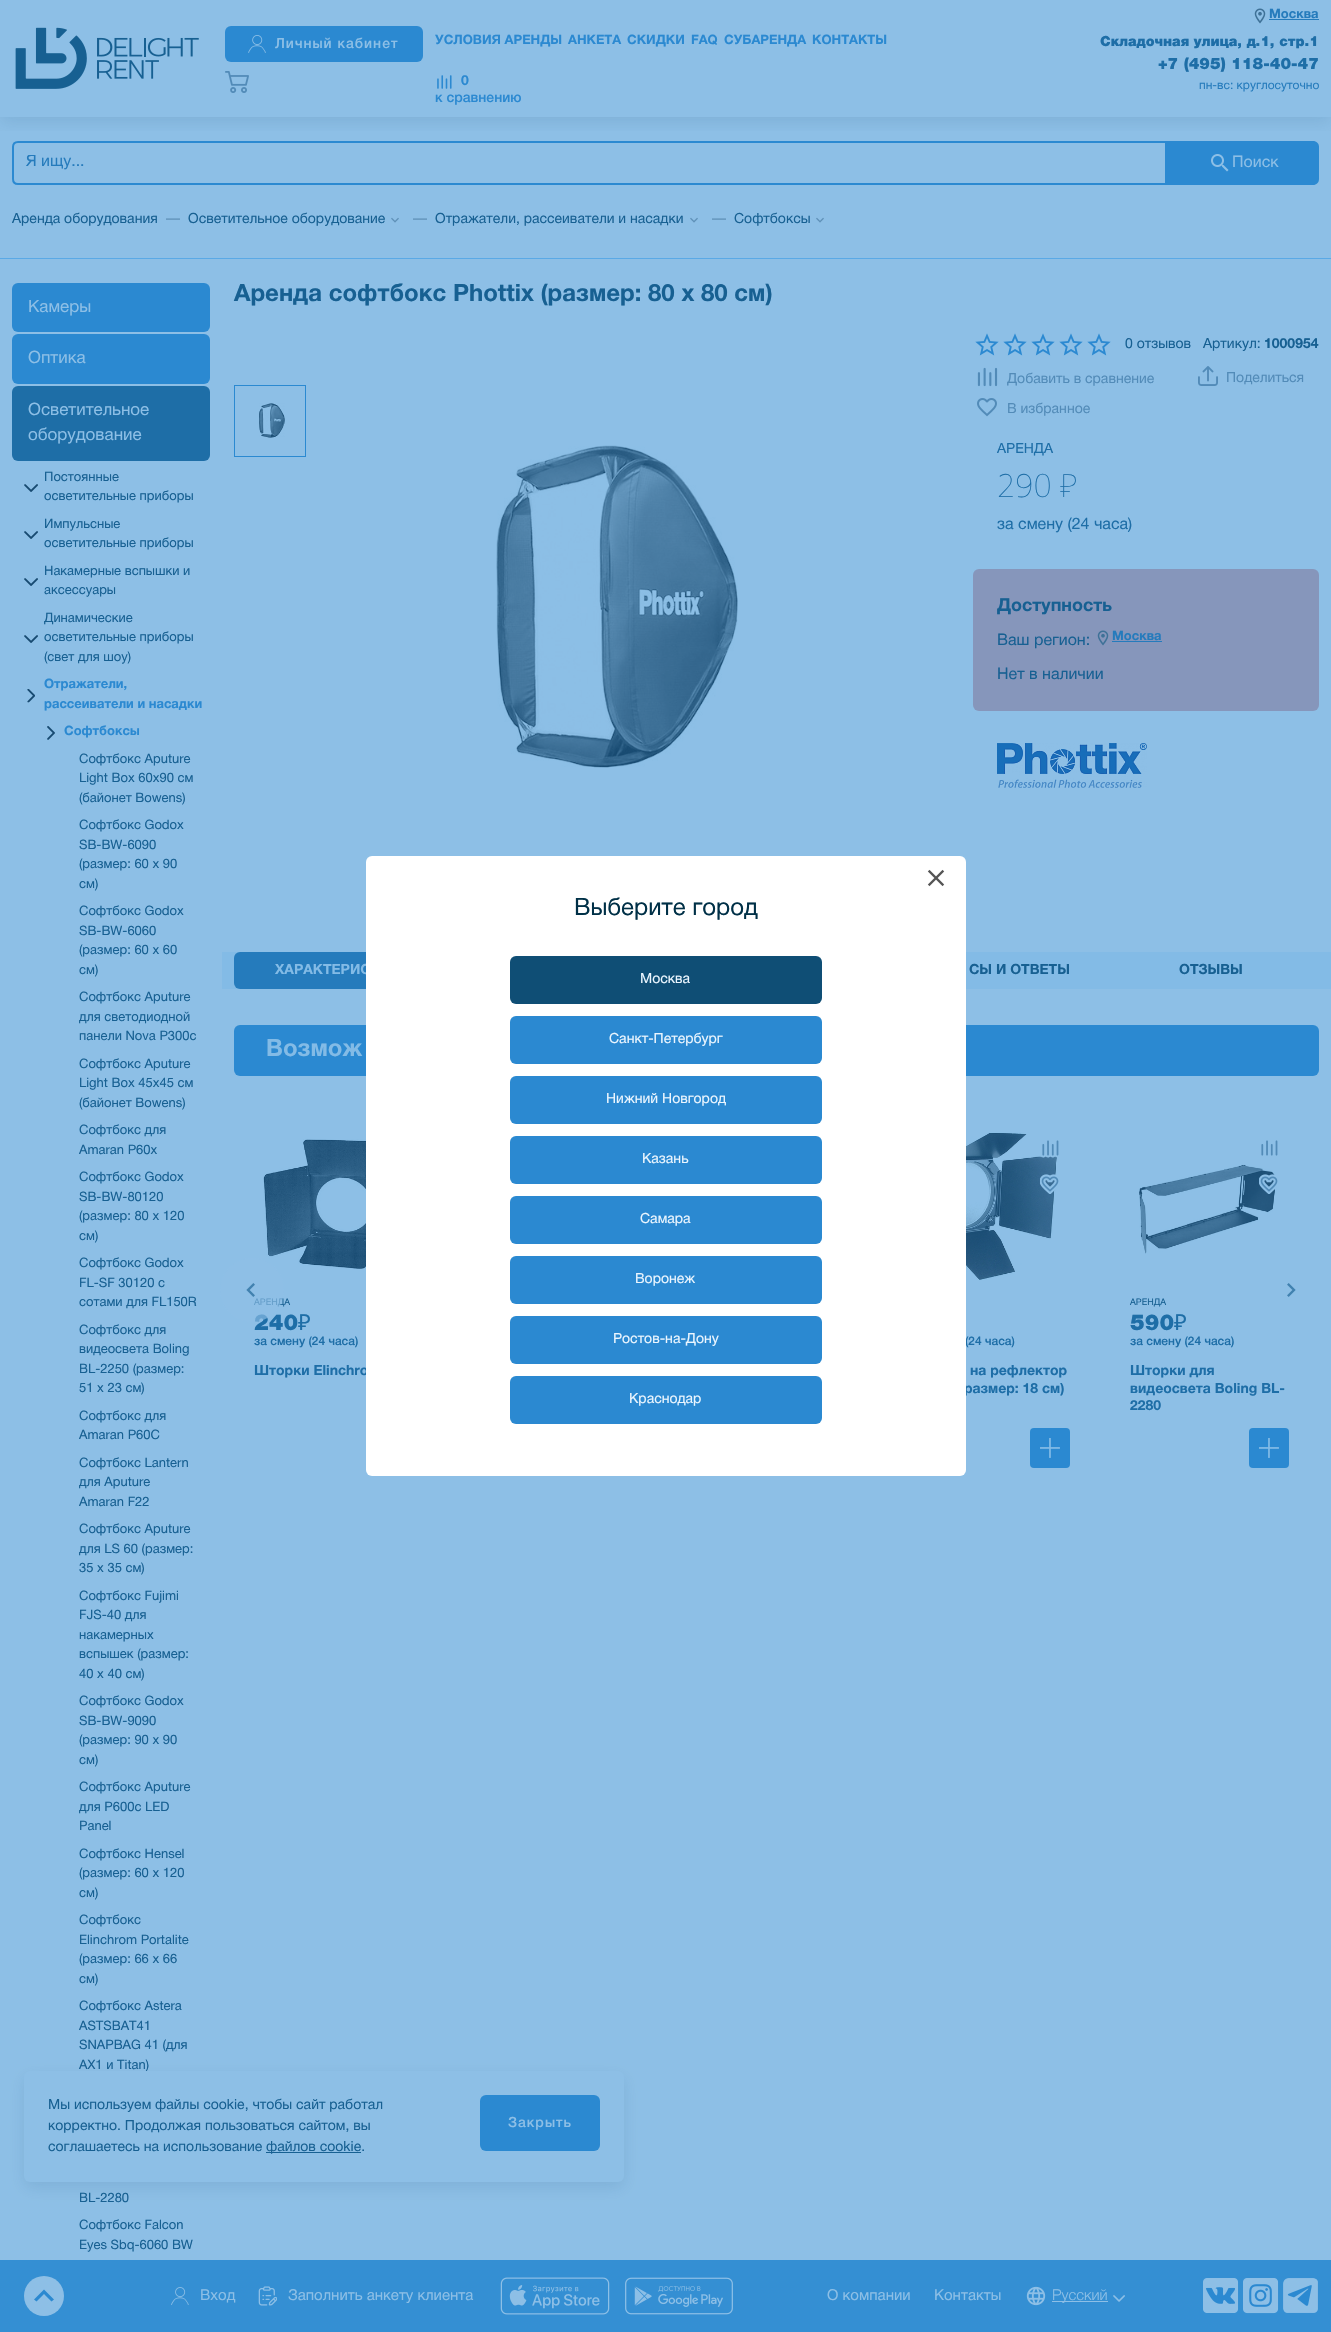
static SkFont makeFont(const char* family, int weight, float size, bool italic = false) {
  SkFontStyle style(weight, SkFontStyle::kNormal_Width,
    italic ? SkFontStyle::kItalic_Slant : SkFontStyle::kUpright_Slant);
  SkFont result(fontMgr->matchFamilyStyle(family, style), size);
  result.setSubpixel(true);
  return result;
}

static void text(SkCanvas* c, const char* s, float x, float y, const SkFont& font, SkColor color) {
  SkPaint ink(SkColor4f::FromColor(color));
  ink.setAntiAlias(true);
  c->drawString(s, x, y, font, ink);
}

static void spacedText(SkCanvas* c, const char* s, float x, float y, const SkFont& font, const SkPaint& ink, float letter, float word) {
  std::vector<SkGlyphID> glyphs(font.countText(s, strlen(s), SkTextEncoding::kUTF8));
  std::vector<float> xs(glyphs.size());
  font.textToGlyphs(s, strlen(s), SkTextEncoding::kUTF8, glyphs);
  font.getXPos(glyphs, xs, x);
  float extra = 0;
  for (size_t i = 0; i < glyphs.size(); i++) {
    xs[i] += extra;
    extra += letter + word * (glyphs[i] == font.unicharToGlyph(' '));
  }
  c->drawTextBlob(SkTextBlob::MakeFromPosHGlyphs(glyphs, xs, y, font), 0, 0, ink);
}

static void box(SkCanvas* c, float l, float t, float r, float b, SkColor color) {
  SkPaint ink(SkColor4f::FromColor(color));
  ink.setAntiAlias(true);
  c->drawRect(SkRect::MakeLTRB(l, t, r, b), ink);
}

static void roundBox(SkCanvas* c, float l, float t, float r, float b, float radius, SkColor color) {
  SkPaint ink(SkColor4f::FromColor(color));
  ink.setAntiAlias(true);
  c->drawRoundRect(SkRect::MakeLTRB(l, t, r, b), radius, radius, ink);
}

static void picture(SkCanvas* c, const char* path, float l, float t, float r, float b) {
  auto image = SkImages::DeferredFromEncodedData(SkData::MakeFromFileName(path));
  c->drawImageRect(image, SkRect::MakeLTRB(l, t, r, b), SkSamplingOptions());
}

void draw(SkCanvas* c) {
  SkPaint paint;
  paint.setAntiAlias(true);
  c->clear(0xff8dbfe6);
  c->save();
  c->clipRect(SkRect::MakeLTRB(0, 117, 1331, 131));
  paint.setColor(0x1f174a71);
  paint.setMaskFilter(SkMaskFilter::MakeBlur(kNormal_SkBlurStyle, 8));
  c->drawRect(SkRect::MakeLTRB(0, 6, 1331, 123), paint);
  paint.setMaskFilter(nullptr);
  c->restore();
  picture(c, "img_01.png", 15, 27, 199, 89);
  roundBox(c, 225, 26, 423, 62, 6, 0xff2b89d1);
  picture(c, "img_02.png", 248, 35, 266, 53);
  SkFont face1 = makeFont("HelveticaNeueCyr", 500, 14);
  paint.setColor(0xff8dbfe6);
  spacedText(c, "Личный кабинет", 275, 48, face1, paint, 1, 0);
  picture(c, "img_03.png", 225, 71, 249, 93);
  SkFont face2 = makeFont("HelveticaNeueCyr", 700, 13);
  text(c, "УСЛОВИЯ АРЕНДЫ", 435, 44, face2, 0xff2b89d1);
  text(c, "АНКЕТА", 568, 44, face2, 0xff2b89d1);
  text(c, "СКИДКИ", 627, 44, face2, 0xff2b89d1);
  text(c, "FAQ", 691, 44, face2, 0xff2b89d1);
  text(c, "СУБАРЕНДА", 724, 44, face2, 0xff2b89d1);
  text(c, "КОНТАКТЫ", 812, 44, face2, 0xff2b89d1);
  picture(c, "img_04.png", 437, 75, 452, 89);
  SkFont face3 = makeFont("HelveticaNeueCyr", 700, 14);
  text(c, "0", 461, 85, face3, 0xff2b89d1);
  text(c, "к сравнению", 435, 102, face1, 0xff2b89d1);
  picture(c, "img_05.png", 1254, 8, 1266, 24);
  text(c, "Москва", 1269, 18, face2, 0xff257bbc);
  box(c, 1269, 19, 1319, 20, 0xff257bbc);
  SkFont face4 = makeFont("HelveticaNeueCyr", 900, 14);
  text(c, "Складочная улица, д.1, стр.1", 1100, 46, face4, 0xff1e6ea7);
  SkFont face5 = makeFont("HelveticaNeueCyr", 900, 16);
  text(c, "+7 (495) 118-40-47", 1158, 69, face5, 0xff1e6ea7);
  SkFont face6 = makeFont("HelveticaNeueCyr", 400, 12);
  text(c, "пн-вс: круглосуточно", 1199, 89, face6, 0xff257bbc);
  box(c, 0, 258, 1331, 259, 0xff5aa9e6);
  paint.setStyle(SkPaint::kStroke_Style);
  paint.setStrokeWidth(2);
  paint.setColor(0xff2b89d1);
  c->drawPath(SkPathBuilder().moveTo(18, 142).lineTo(1166, 142).lineTo(1166, 184).lineTo(18, 184).cubicTo(15, 184, 13, 182, 13, 179).lineTo(13, 147).cubicTo(13, 144, 15, 142, 18, 142).close().detach(), paint);
  c->save();
  c->clipRect(SkRect::MakeLTRB(26, 155, 1153, 170));
  SkFont face7 = makeFont("HelveticaNeueCyr", 400, 16);
  text(c, "Я ищу...", 26, 166, face7, 0xff257bbc);
  c->restore();
  paint.setStyle(SkPaint::kFill_Style);
  c->drawPath(SkPathBuilder().moveTo(1167, 141).lineTo(1313, 141).cubicTo(1316.5f, 141, 1319, 143.5f, 1319, 147).lineTo(1319, 179).cubicTo(1319, 182.5f, 1316.5f, 185, 1313, 185).lineTo(1167, 185).close().detach(), paint);
  picture(c, "img_06.png", 1211, 154, 1229, 172);
  text(c, "Поиск", 1232, 167, face7, 0xff8dbfe6);
  SkFont face8 = makeFont("HelveticaNeueCyr", 400, 14);
  text(c, "Аренда оборудования", 12, 223, face8, 0xff176092);
  text(c, "—", 166, 223, face8, 0xff5e90b7);
  text(c, "Осветительное оборудование", 188, 223, face8, 0xff176092);
  picture(c, "img_07.png", 391, 217, 399, 223);
  text(c, "—", 413, 223, face8, 0xff5e90b7);
  text(c, "Отражатели, рассеиватели и насадки", 435, 223, face8, 0xff176092);
  picture(c, "img_07.png", 690, 217, 698, 223);
  text(c, "—", 712, 223, face8, 0xff5e90b7);
  text(c, "Софтбоксы", 734, 223, face8, 0xff176092);
  picture(c, "img_07.png", 816, 217, 824, 223);
  roundBox(c, 12, 283, 210, 332, 6, 0xff2b89d1);
  SkFont face9 = makeFont("HelveticaNeueCyr", 400, 17);
  text(c, "Камеры", 28, 312, face9, 0xff8dbfe6);
  roundBox(c, 12, 334, 210, 384, 6, 0xff2b89d1);
  text(c, "Оптика", 28, 363, face9, 0xff8dbfe6);
  roundBox(c, 12, 386, 210, 461, 6, 0xff1e6ea7);
  text(c, "Осветительное", 28, 415, face9, 0xff8dbfe6);
  text(c, "оборудование", 28, 440, face9, 0xff8dbfe6);
  picture(c, "img_08.png", 24, 484, 38, 492);
  SkFont face10 = makeFont("HelveticaNeueCyr", 400, 13);
  text(c, "Постоянные", 44, 481, face10, 0xff176092);
  text(c, "осветительные приборы", 44, 500, face10, 0xff176092);
  picture(c, "img_08.png", 24, 531, 38, 539);
  text(c, "Импульсные", 44, 528, face10, 0xff176092);
  text(c, "осветительные приборы", 44, 547, face10, 0xff176092);
  picture(c, "img_08.png", 24, 578, 38, 586);
  text(c, "Накамерные вспышки и", 44, 575, face10, 0xff176092);
  text(c, "аксессуары", 44, 594, face10, 0xff176092);
  picture(c, "img_08.png", 24, 635, 38, 643);
  text(c, "Динамические", 44, 622, face10, 0xff176092);
  text(c, "осветительные приборы", 44, 641, face10, 0xff176092);
  text(c, "(свет для шоу)", 44, 661, face10, 0xff176092);
  picture(c, "img_09.png", 27, 689, 35, 703);
  text(c, "Отражатели,", 44, 688, face2, 0xff2b89d1);
  text(c, "рассеиватели и насадки", 44, 708, face2, 0xff2b89d1);
  picture(c, "img_10.png", 47, 726, 55, 740);
  text(c, "Софтбоксы", 64, 735, face2, 0xff2b89d1);
  text(c, "Софтбокс Aputure", 79, 763, face10, 0xff176092);
  text(c, "Light Box 60x90 см", 79, 782, face10, 0xff176092);
  text(c, "(байонет Bowens)", 79, 802, face10, 0xff176092);
  text(c, "Софтбокс Godox", 79, 829, face10, 0xff176092);
  text(c, "SB-BW-6090", 79, 849, face10, 0xff176092);
  text(c, "(размер: 60 x 90", 79, 868, face10, 0xff176092);
  text(c, "см)", 79, 888, face10, 0xff176092);
  text(c, "Софтбокс Godox", 79, 915, face10, 0xff176092);
  text(c, "SB-BW-6060", 79, 935, face10, 0xff176092);
  text(c, "(размер: 60 x 60", 79, 954, face10, 0xff176092);
  text(c, "см)", 79, 974, face10, 0xff176092);
  text(c, "Софтбокс Aputure", 79, 1001, face10, 0xff176092);
  text(c, "для светодиодной", 79, 1021, face10, 0xff176092);
  text(c, "панели Nova P300c", 79, 1040, face10, 0xff176092);
  text(c, "Софтбокс Aputure", 79, 1068, face10, 0xff176092);
  text(c, "Light Box 45x45 см", 79, 1087, face10, 0xff176092);
  text(c, "(байонет Bowens)", 79, 1107, face10, 0xff176092);
  text(c, "Софтбокс для", 79, 1134, face10, 0xff176092);
  text(c, "Amaran P60x", 79, 1154, face10, 0xff176092);
  text(c, "Софтбокс Godox", 79, 1181, face10, 0xff176092);
  text(c, "SB-BW-80120", 79, 1201, face10, 0xff176092);
  text(c, "(размер: 80 x 120", 79, 1220, face10, 0xff176092);
  text(c, "см)", 79, 1240, face10, 0xff176092);
  text(c, "Софтбокс Godox", 79, 1267, face10, 0xff176092);
  text(c, "FL-SF 30120 с", 79, 1287, face10, 0xff176092);
  text(c, "сотами для FL150R", 79, 1306, face10, 0xff176092);
  text(c, "Софтбокс для", 79, 1334, face10, 0xff176092);
  text(c, "видеосвета Boling", 79, 1353, face10, 0xff176092);
  text(c, "BL-2250 (размер:", 79, 1373, face10, 0xff176092);
  text(c, "51 x 23 см)", 79, 1392, face10, 0xff176092);
  text(c, "Софтбокс для", 79, 1420, face10, 0xff176092);
  text(c, "Amaran P60C", 79, 1439, face10, 0xff176092);
  text(c, "Софтбокс Lantern", 79, 1467, face10, 0xff176092);
  text(c, "для Aputure", 79, 1486, face10, 0xff176092);
  text(c, "Amaran F22", 79, 1506, face10, 0xff176092);
  text(c, "Софтбокс Aputure", 79, 1533, face10, 0xff176092);
  text(c, "для LS 60 (размер:", 79, 1553, face10, 0xff176092);
  text(c, "35 x 35 см)", 79, 1572, face10, 0xff176092);
  text(c, "Софтбокс Fujimi", 79, 1600, face10, 0xff176092);
  text(c, "FJS-40 для", 79, 1619, face10, 0xff176092);
  text(c, "накамерных", 79, 1639, face10, 0xff176092);
  text(c, "вспышек (размер:", 79, 1658, face10, 0xff176092);
  text(c, "40 х 40 см)", 79, 1678, face10, 0xff176092);
  text(c, "Софтбокс Godox", 79, 1705, face10, 0xff176092);
  text(c, "SB-BW-9090", 79, 1725, face10, 0xff176092);
  text(c, "(размер: 90 x 90", 79, 1744, face10, 0xff176092);
  text(c, "см)", 79, 1764, face10, 0xff176092);
  text(c, "Софтбокс Aputure", 79, 1791, face10, 0xff176092);
  text(c, "для P600c LED", 79, 1811, face10, 0xff176092);
  text(c, "Panel", 79, 1830, face10, 0xff176092);
  text(c, "Софтбокс Hensel", 79, 1858, face10, 0xff176092);
  text(c, "(размер: 60 x 120", 79, 1877, face10, 0xff176092);
  text(c, "см)", 79, 1897, face10, 0xff176092);
  text(c, "Софтбокс", 79, 1924, face10, 0xff176092);
  text(c, "Elinchrom Portalite", 79, 1944, face10, 0xff176092);
  text(c, "(размер: 66 x 66", 79, 1963, face10, 0xff176092);
  text(c, "см)", 79, 1983, face10, 0xff176092);
  text(c, "Софтбокс Astera", 79, 2010, face10, 0xff176092);
  text(c, "ASTSBAT41", 79, 2030, face10, 0xff176092);
  text(c, "SNAPBAG 41 (для", 79, 2049, face10, 0xff176092);
  text(c, "AX1 и Titan)", 79, 2069, face10, 0xff176092);
  text(c, "BL-2280", 79, 2202, face10, 0xff176092);
  text(c, "Софтбокс Falcon", 79, 2229, face10, 0xff176092);
  text(c, "Eyes Sbq-6060 BW", 79, 2249, face10, 0xff176092);
  SkFont face11 = makeFont("HelveticaNeueCyr", 700, 24);
  text(c, "Аренда софтбокс Phottix (размер: 80 х 80 см)", 234, 301, face11, 0xff176092);
  paint.setStyle(SkPaint::kStroke_Style);
  paint.setStrokeWidth(1);
  c->drawRect(SkRect::MakeLTRB(234.5f, 385.5f, 305.5f, 456.5f), paint);
  picture(c, "img_11.png", 259, 403, 285, 438);
  picture(c, "img_12.png", 496, 445, 738, 768);
  picture(c, "img_13.png", 975, 333, 999, 356);
  picture(c, "img_13.png", 1003, 333, 1027, 356);
  picture(c, "img_13.png", 1031, 333, 1055, 356);
  picture(c, "img_13.png", 1059, 333, 1083, 356);
  picture(c, "img_13.png", 1087, 333, 1111, 356);
  text(c, "0 отзывов", 1125, 348, face8, 0xff176092);
  text(c, "Артикул:", 1203, 348, face8, 0xff176092);
  text(c, "1000954", 1264, 348, face3, 0xff176092);
  picture(c, "img_14.png", 977, 367, 998, 387);
  text(c, "Добавить в сравнение", 1007, 383, face8, 0xff528bb8);
  picture(c, "img_15.png", 1198, 366, 1218, 386);
  text(c, "Поделиться", 1226, 382, face8, 0xff528bb8);
  picture(c, "img_16.png", 977, 398, 997, 417);
  text(c, "В избранное", 1007, 413, face8, 0xff528bb8);
  text(c, "АРЕНДА", 997, 453, face8, 0xff1e6ea7);
  SkFont face12 = makeFont("Noto Sans", 100, 32);
  text(c, "290 ₽", 997, 497, face12, 0xff1e6ea7);
  text(c, "за смену (24 часа)", 997, 529, face7, 0xff1e6ea7);
  roundBox(c, 973, 569, 1319, 711, 6, 0xff8696bb);
  SkFont face13 = makeFont("HelveticaNeueCyr", 700, 18);
  text(c, "Доступность", 997, 611, face13, 0xff176092);
  picture(c, "img_17.png", 1097, 630, 1109, 646);
  text(c, "Москва", 1112, 640, face2, 0xff257bbc);
  box(c, 1112, 641, 1162, 642, 0xff257bbc);
  box(c, 222, 952, 1331, 989, 0xff83bbe6);
  roundBox(c, 234, 952, 451, 989, 6, 0xff257bbc);
  text(c, "ХАРАКТЕРИС", 275, 974, face3, 0xff83bbe6);
  roundBox(c, 234, 1025, 1319, 1076, 6, 0xff2b89d1);
  text(c, "Шторки Elinchro", 254, 1375, face3, 0xff1e6ea7);
  SkFont face14 = makeFont("HelveticaNeueCyr", 500, 12);
  text(c, "(24 часа)", 965, 1345, face14, 0xff1e6ea7);
  text(c, "размер: 18 см)", 964, 1393, face3, 0xff1e6ea7);
  roundBox(c, 366, 856, 966, 1476, 6, 0xffffffff);
  picture(c, "img_18.png", 927, 869, 945, 887);
  SkFont face15 = makeFont("HelveticaNeueCyr", 400, 24);
  text(c, "Выберите город", 574, 915, face15, 0xff003047);
  roundBox(c, 510, 956, 822, 1004, 6, 0xff0f4e75);
  text(c, "Москва", 640, 983, face8, 0xffebf6ff);
  roundBox(c, 510, 1016, 822, 1064, 6, 0xff2b89d1);
  text(c, "Санкт-Петербург", 609, 1043, face8, 0xffebf6ff);
  roundBox(c, 510, 1076, 822, 1124, 6, 0xff2b89d1);
  text(c, "Нижний Новгород", 606, 1103, face8, 0xffebf6ff);
  roundBox(c, 510, 1136, 822, 1184, 6, 0xff2b89d1);
  text(c, "Казань", 642, 1163, face8, 0xffebf6ff);
  roundBox(c, 510, 1196, 822, 1244, 6, 0xff2b89d1);
  text(c, "Самара", 640, 1223, face8, 0xffebf6ff);
  roundBox(c, 510, 1256, 822, 1304, 6, 0xff2b89d1);
  text(c, "Воронеж", 635, 1283, face8, 0xffebf6ff);
  roundBox(c, 510, 1316, 822, 1364, 6, 0xff2b89d1);
  text(c, "Ростов-на-Дону", 613, 1343, face8, 0xffebf6ff);
  roundBox(c, 510, 1376, 822, 1424, 6, 0xff2b89d1);
  text(c, "Краснодар", 629, 1403, face8, 0xffebf6ff);
  text(c, "Ваш регион:", 997, 645, face7, 0xff176092);
  text(c, "Нет в наличии", 997, 679, face7, 0xff176092);
  picture(c, "img_19.png", 997, 743, 1147, 788);
  text(c, "СЫ И ОТВЕТЫ", 969, 974, face3, 0xff176092);
  text(c, "ОТЗЫВЫ", 1179, 974, face3, 0xff176092);
  text(c, "Возмож", 266, 1056, face11, 0xff83bbe6);
  picture(c, "img_22.png", 263, 1139, 366, 1269);
  SkFont face16 = makeFont("HelveticaNeueCyr", 400, 9);
  text(c, "АРЕНДА", 254, 1305, face16, 0xff176092);
  SkFont face17 = makeFont("HelveticaNeueCyr", 900, 22);
  text(c, "240", 254, 1330, face17, 0xff1e6ea7);
  paint.setStyle(SkPaint::kFill_Style);
  paint.setColor(0xa68dbfe6);
  c->drawCircle(252, 1290, 32, paint);
  picture(c, "img_20.png", 246, 1283, 255, 1297);
  picture(c, "img_21.png", 1287, 1283, 1296, 1297);
  SkFont face18 = makeFont("Noto Sans", 400, 22);
  text(c, "₽", 298, 1330, face18, 0xff1e6ea7);
  text(c, "за смену (24 часа)", 254, 1345, face14, 0xff1e6ea7);
  picture(c, "img_23.png", 966, 1132, 1057, 1280);
  picture(c, "img_24.png", 1040, 1140, 1059, 1158);
  picture(c, "img_25.png", 1040, 1174, 1059, 1194);
  text(c, "на рефлектор", 970, 1375, face3, 0xff1e6ea7);
  roundBox(c, 1030, 1428, 1070, 1468, 4, 0xff2b89d1);
  picture(c, "img_26.png", 1040, 1438, 1060, 1458);
  picture(c, "img_27.png", 1139, 1164, 1277, 1254);
  picture(c, "img_28.png", 1261, 1140, 1278, 1156);
  picture(c, "img_29.png", 1259, 1174, 1278, 1194);
  text(c, "АРЕНДА", 1130, 1305, face16, 0xff176092);
  text(c, "590", 1130, 1330, face17, 0xff1e6ea7);
  text(c, "₽", 1174, 1330, face18, 0xff1e6ea7);
  text(c, "за смену (24 часа)", 1130, 1345, face14, 0xff1e6ea7);
  text(c, "Шторки для", 1130, 1375, face3, 0xff1e6ea7);
  text(c, "видеосвета Boling BL-", 1130, 1393, face3, 0xff1e6ea7);
  text(c, "2280", 1130, 1410, face3, 0xff1e6ea7);
  roundBox(c, 1249, 1428, 1289, 1468, 4, 0xff2b89d1);
  picture(c, "img_26.png", 1259, 1438, 1279, 1458);
  paint.setColor(0x1f174a71);
  paint.setMaskFilter(SkMaskFilter::MakeBlur(kNormal_SkBlurStyle, 8));
  c->drawRoundRect(SkRect::MakeLTRB(24, 2077, 624, 2188), 6, 6, paint);
  paint.setMaskFilter(nullptr);
  roundBox(c, 24, 2071, 624, 2182, 6, 0xff8dbfe6);
  text(c, "Мы используем файлы cookie, чтобы сайт работал", 48, 2109, face8, 0xff176092);
  text(c, "корректно. Продолжая пользоваться сайтом, вы", 48, 2130, face8, 0xff176092);
  text(c, "соглашаетесь на использование", 48, 2151, face8, 0xff176092);
  box(c, 266, 2152, 361, 2153, 0xff176092);
  text(c, "файлов cookie.", 266, 2151, face8, 0xff176092);
  roundBox(c, 480, 2095, 600, 2151, 6, 0xff2b89d1);
  paint.setColor(0xff8dbfe6);
  spacedText(c, "Закрыть", 508, 2127, face1, paint, 1, 0);
  box(c, 0, 2260, 1331, 2332, 0xe82b89d1);
  c->drawCircle(44, 2296, 20, paint);
  paint.setColor(0xff2b89d1);
  c->drawPath(SkPathBuilder().moveTo(36.5f, 2301.5f).lineTo(44, 2294).lineTo(51.5f, 2301.5f).lineTo(54, 2299.5f).lineTo(44, 2289.5f).lineTo(34, 2299.5f).close().detach(), paint);
  picture(c, "img_30.png", 171, 2287, 189, 2305);
  SkFont face19 = makeFont("HelveticaNeueCyr", 400, 15);
  text(c, "Вход", 200, 2300, face19, 0xff8dbfe6);
  picture(c, "img_31.png", 258, 2286, 277, 2306);
  text(c, "Заполнить анкету клиента", 288, 2300, face19, 0xff8dbfe6);
  picture(c, "img_32.png", 500, 2277, 610, 2315);
  picture(c, "img_33.png", 625, 2277, 733, 2315);
  text(c, "О компании", 827, 2300, face19, 0xff8dbfe6);
  text(c, "Контакты", 934, 2300, face19, 0xff8dbfe6);
  picture(c, "img_34.png", 1026, 2286, 1046, 2306);
  box(c, 1052, 2301, 1108, 2302, 0xff8dbfe6);
  SkFont face20 = makeFont("HelveticaNeueCyr", 300, 15);
  text(c, "Русский", 1052, 2300, face20, 0xff8dbfe6);
  picture(c, "img_35.png", 1113, 2295, 1125, 2302);
  picture(c, "img_36.png", 1203, 2278, 1239, 2313);
  picture(c, "img_37.png", 1243, 2278, 1279, 2314);
  picture(c, "img_38.png", 1283, 2278, 1318, 2313);
}
